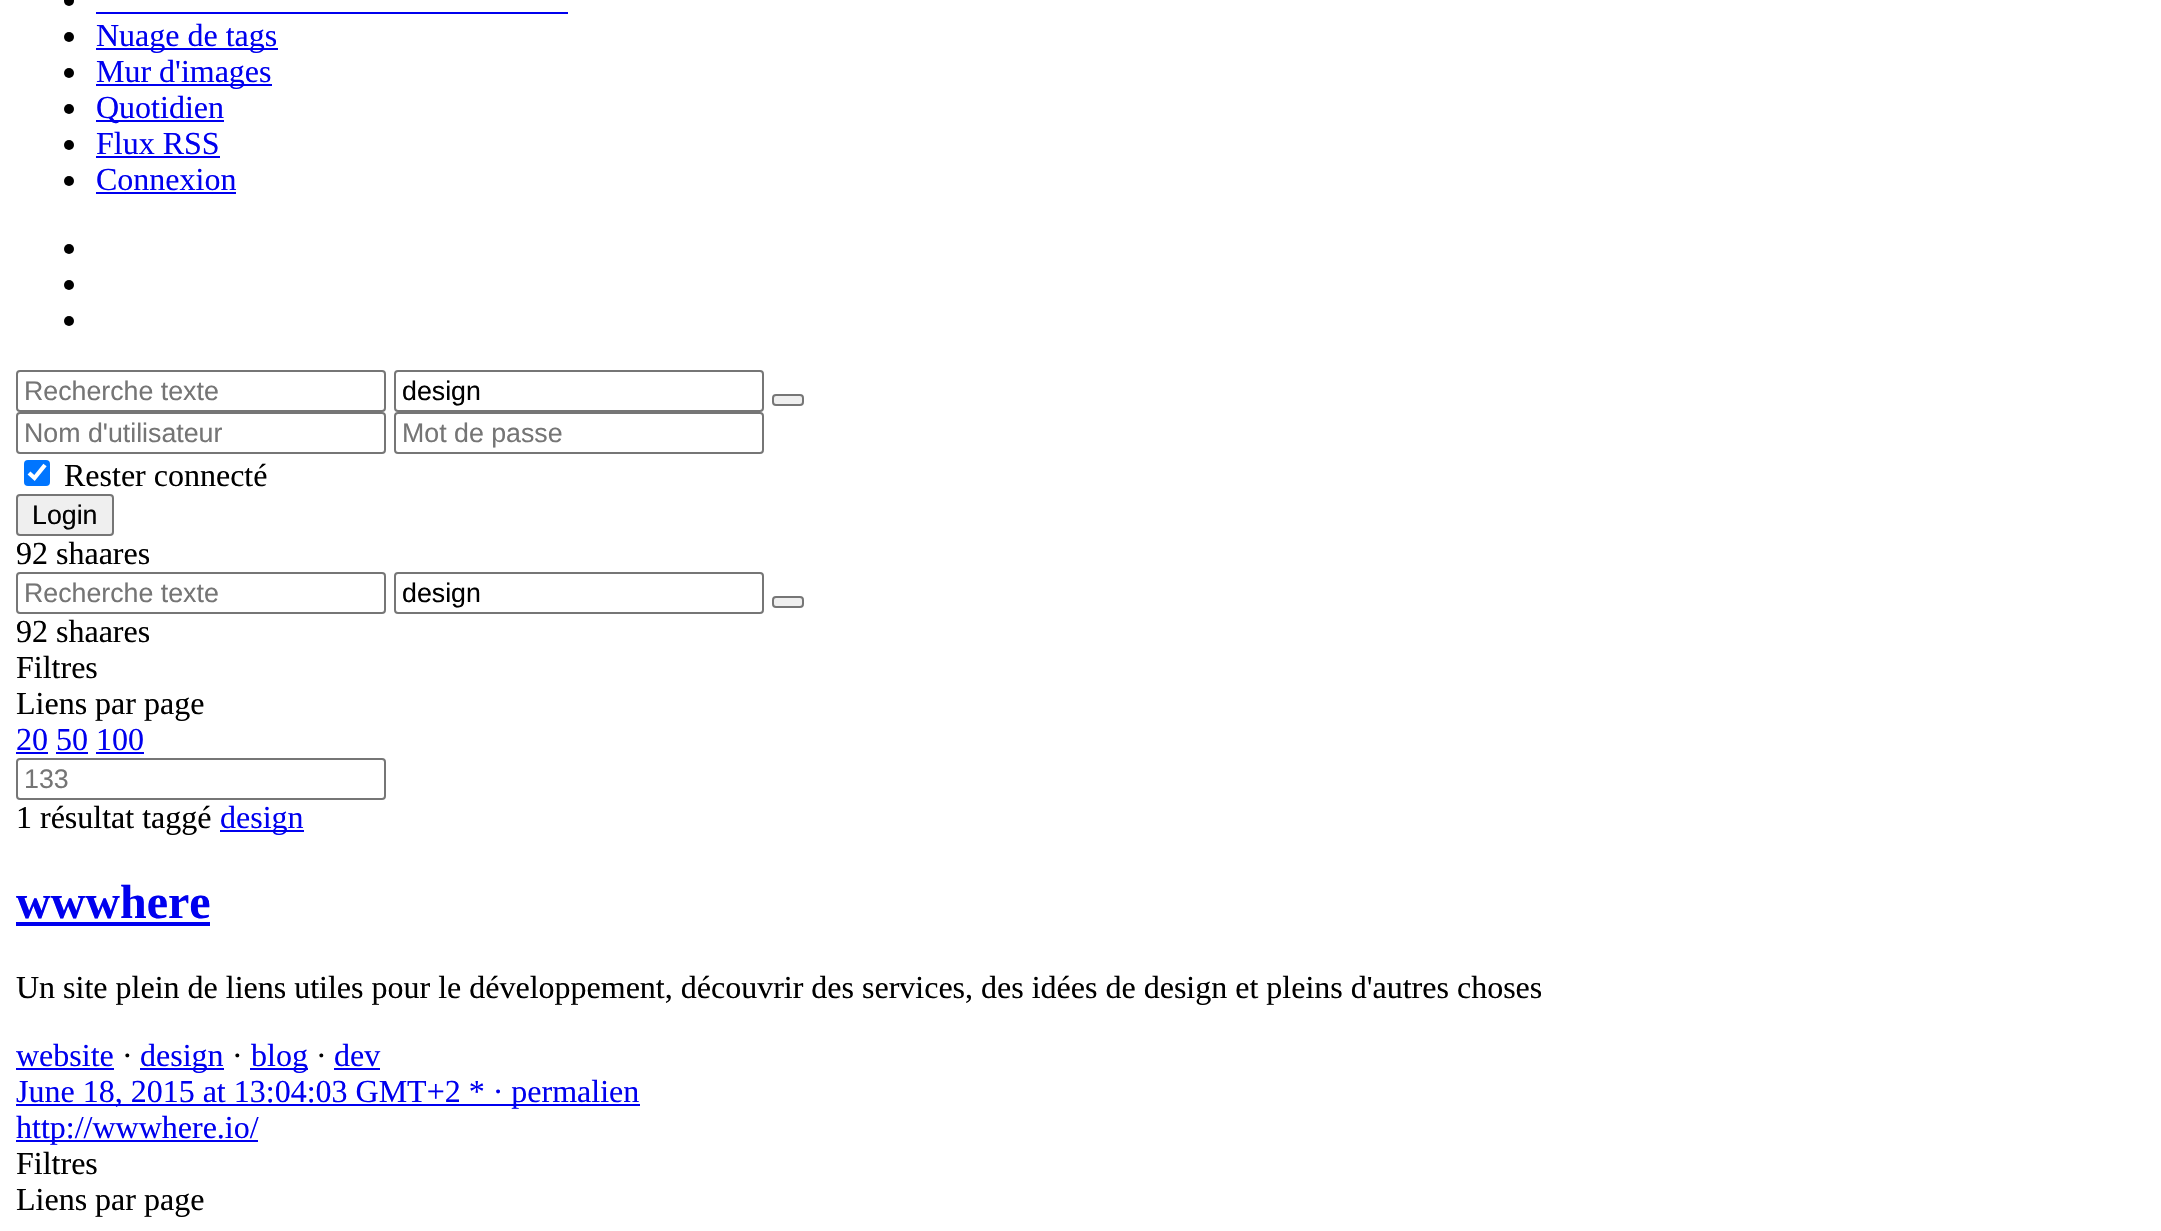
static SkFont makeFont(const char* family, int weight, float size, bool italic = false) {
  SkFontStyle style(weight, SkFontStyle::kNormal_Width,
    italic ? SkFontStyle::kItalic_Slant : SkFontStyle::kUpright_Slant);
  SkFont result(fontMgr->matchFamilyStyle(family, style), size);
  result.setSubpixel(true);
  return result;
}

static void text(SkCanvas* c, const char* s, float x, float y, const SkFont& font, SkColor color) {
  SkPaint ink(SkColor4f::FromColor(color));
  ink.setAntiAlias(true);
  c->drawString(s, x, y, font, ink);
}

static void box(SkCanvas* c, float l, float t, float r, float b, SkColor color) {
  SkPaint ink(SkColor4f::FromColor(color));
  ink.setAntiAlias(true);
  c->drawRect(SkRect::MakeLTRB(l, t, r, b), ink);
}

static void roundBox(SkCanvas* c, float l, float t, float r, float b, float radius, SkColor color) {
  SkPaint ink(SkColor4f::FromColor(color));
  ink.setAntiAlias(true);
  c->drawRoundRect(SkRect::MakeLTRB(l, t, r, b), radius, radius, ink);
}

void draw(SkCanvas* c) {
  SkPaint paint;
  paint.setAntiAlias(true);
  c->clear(0xffffffff);
  paint.setColor(0xff000000);
  c->drawCircle(69, 1, 5, paint);
  box(c, 96, 12, 568, 14, 0xff0000ee);
  c->drawCircle(69, 37, 5, paint);
  box(c, 96, 48, 278, 50, 0xff0000ee);
  SkFont face1 = makeFont("Liberation Serif", 400, 32);
  text(c, "Nuage de tags", 96, 46, face1, 0xff0000ee);
  c->drawCircle(69, 73, 5, paint);
  box(c, 96, 84, 272, 86, 0xff0000ee);
  text(c, "Mur d'images", 96, 82, face1, 0xff0000ee);
  c->drawCircle(69, 109, 5, paint);
  box(c, 96, 120, 224, 122, 0xff0000ee);
  text(c, "Quotidien", 96, 118, face1, 0xff0000ee);
  c->drawCircle(69, 145, 5, paint);
  text(c, "Flux RSS", 96, 154, face1, 0xff0000ee);
  box(c, 96, 156, 220, 158, 0xff0000ee);
  c->drawCircle(69, 181, 5, paint);
  text(c, "Connexion", 96, 190, face1, 0xff0000ee);
  box(c, 96, 192, 236, 194, 0xff0000ee);
  c->drawCircle(69, 249, 5, paint);
  c->drawCircle(69, 285, 5, paint);
  c->drawCircle(69, 321, 5, paint);
  paint.setStyle(SkPaint::kStroke_Style);
  paint.setStrokeWidth(2);
  paint.setColor(0xff767676);
  c->drawRoundRect(SkRect::MakeLTRB(17, 371, 385, 411), 3, 3, paint);
  SkFont face2 = makeFont("Liberation Sans", 400, 26.75f);
  text(c, "Recherche texte", 24, 400, face2, 0xff757575);
  c->drawRoundRect(SkRect::MakeLTRB(395, 371, 763, 411), 3, 3, paint);
  text(c, "design", 402, 400, face2, 0xff000000);
  paint.setStyle(SkPaint::kFill_Style);
  paint.setColor(0xffefefef);
  c->drawRoundRect(SkRect::MakeLTRB(773, 395, 803, 405), 3, 3, paint);
  paint.setStyle(SkPaint::kStroke_Style);
  paint.setColor(0xff767676);
  c->drawRoundRect(SkRect::MakeLTRB(773, 395, 803, 405), 3, 3, paint);
  c->drawRoundRect(SkRect::MakeLTRB(17, 413, 385, 453), 3, 3, paint);
  text(c, "Nom d'utilisateur", 24, 442, face2, 0xff757575);
  c->drawRoundRect(SkRect::MakeLTRB(395, 413, 763, 453), 3, 3, paint);
  text(c, "Mot de passe", 402, 442, face2, 0xff757575);
  roundBox(c, 24, 460, 50, 486, 4, 0xff0075ff);
  paint.setStrokeWidth(4.2f);
  paint.setColor(0xffffffff);
  c->drawPath(SkPathBuilder().moveTo(29, 473).lineTo(34.5f, 478).lineTo(45, 465).detach(), paint);
  text(c, "Rester connecté", 64, 486, face1, 0xff000000);
  paint.setStyle(SkPaint::kFill_Style);
  paint.setColor(0xffefefef);
  c->drawRoundRect(SkRect::MakeLTRB(17, 495, 113, 535), 3, 3, paint);
  paint.setStyle(SkPaint::kStroke_Style);
  paint.setStrokeWidth(2);
  paint.setColor(0xff767676);
  c->drawRoundRect(SkRect::MakeLTRB(17, 495, 113, 535), 3, 3, paint);
  text(c, "Login", 32, 524, face2, 0xff000000);
  text(c, "92 shaares", 16, 564, face1, 0xff000000);
  c->drawRoundRect(SkRect::MakeLTRB(17, 573, 385, 613), 3, 3, paint);
  text(c, "Recherche texte", 24, 602, face2, 0xff757575);
  c->drawRoundRect(SkRect::MakeLTRB(395, 573, 763, 613), 3, 3, paint);
  text(c, "design", 402, 602, face2, 0xff000000);
  paint.setStyle(SkPaint::kFill_Style);
  paint.setColor(0xffefefef);
  c->drawRoundRect(SkRect::MakeLTRB(773, 597, 803, 607), 3, 3, paint);
  paint.setStyle(SkPaint::kStroke_Style);
  paint.setColor(0xff767676);
  c->drawRoundRect(SkRect::MakeLTRB(773, 597, 803, 607), 3, 3, paint);
  text(c, "92 shaares", 16, 642, face1, 0xff000000);
  text(c, "Filtres", 16, 678, face1, 0xff000000);
  text(c, "Liens par page", 16, 714, face1, 0xff000000);
  text(c, "20 50 100", 16, 750, face1, 0xff0000ee);
  box(c, 16, 752, 48, 754, 0xff0000ee);
  box(c, 56, 752, 88, 754, 0xff0000ee);
  box(c, 96, 752, 144, 754, 0xff0000ee);
  c->drawRoundRect(SkRect::MakeLTRB(17, 759, 385, 799), 3, 3, paint);
  text(c, "133", 24, 788, face2, 0xff757575);
  text(c, "1 résultat taggé", 16, 828, face1, 0xff000000);
  box(c, 220, 830, 304, 832, 0xff0000ee);
  text(c, "design", 220, 828, face1, 0xff0000ee);
  SkFont face3 = makeFont("Liberation Serif", 700, 48);
  text(c, "wwwhere", 16, 918, face3, 0xff0000ee);
  box(c, 16, 922, 210, 926, 0xff0000ee);
  text(c, "Un site plein de liens utiles pour le développement, découvrir des services, des idées de design et pleins d'autres choses", 16, 998, face1, 0xff000000);
  text(c, "website", 16, 1066, face1, 0xff0000ee);
  box(c, 16, 1068, 114, 1070, 0xff0000ee);
  text(c, "·", 122, 1066, face1, 0xff000000);
  box(c, 140, 1068, 224, 1070, 0xff0000ee);
  text(c, "design", 140, 1066, face1, 0xff0000ee);
  text(c, "·", 232, 1066, face1, 0xff000000);
  box(c, 250, 1068, 308, 1070, 0xff0000ee);
  text(c, "blog", 251, 1066, face1, 0xff0000ee);
  text(c, "·", 316, 1066, face1, 0xff000000);
  text(c, "dev", 334, 1066, face1, 0xff0000ee);
  box(c, 334, 1068, 380, 1070, 0xff0000ee);
  box(c, 16, 1104, 640, 1106, 0xff0000ee);
  text(c, "June 18, 2015 at 13:04:03 GMT+2 * · permalien", 16, 1102, face1, 0xff0000ee);
  box(c, 16, 1140, 258, 1142, 0xff0000ee);
  text(c, "http://wwwhere.io/", 16, 1138, face1, 0xff0000ee);
  text(c, "Filtres", 16, 1174, face1, 0xff000000);
  text(c, "Liens par page", 16, 1210, face1, 0xff000000);
}
